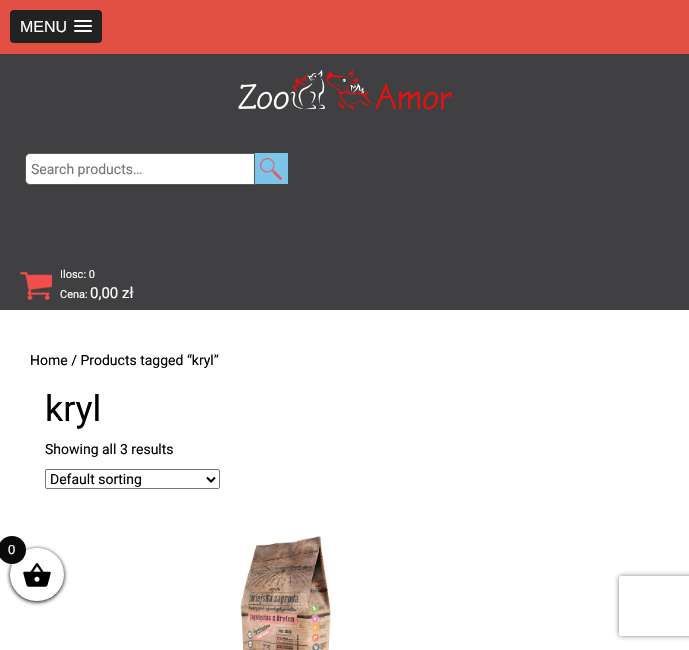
static SkFont makeFont(const char* family, int weight, float size, bool italic = false) {
  SkFontStyle style(weight, SkFontStyle::kNormal_Width,
    italic ? SkFontStyle::kItalic_Slant : SkFontStyle::kUpright_Slant);
  SkFont result(fontMgr->matchFamilyStyle(family, style), size);
  result.setSubpixel(true);
  return result;
}

static void text(SkCanvas* c, const char* s, float x, float y, const SkFont& font, SkColor color) {
  SkPaint ink(SkColor4f::FromColor(color));
  ink.setAntiAlias(true);
  c->drawString(s, x, y, font, ink);
}

static void box(SkCanvas* c, float l, float t, float r, float b, SkColor color) {
  SkPaint ink(SkColor4f::FromColor(color));
  ink.setAntiAlias(true);
  c->drawRect(SkRect::MakeLTRB(l, t, r, b), ink);
}

static void roundBox(SkCanvas* c, float l, float t, float r, float b, float radius, SkColor color) {
  SkPaint ink(SkColor4f::FromColor(color));
  ink.setAntiAlias(true);
  c->drawRoundRect(SkRect::MakeLTRB(l, t, r, b), radius, radius, ink);
}

static void picture(SkCanvas* c, const char* path, float l, float t, float r, float b) {
  auto image = SkImages::DeferredFromEncodedData(SkData::MakeFromFileName(path));
  c->drawImageRect(image, SkRect::MakeLTRB(l, t, r, b), SkSamplingOptions());
}

void draw(SkCanvas* c) {
  SkPaint paint;
  paint.setAntiAlias(true);
  c->clear(0xffffffff);
  box(c, 0, 0, 689, 54, 0xffe15042);
  roundBox(c, 10, 10, 102, 43, 4, 0xff222222);
  SkFont face1 = makeFont("Liberation Sans", 400, 16);
  text(c, "MENU", 20, 32, face1, 0xffffffff);
  roundBox(c, 74, 20, 92, 22, 1, 0xffffffff);
  roundBox(c, 74, 25, 92, 27, 1, 0xffffffff);
  roundBox(c, 74, 30, 92, 32, 1, 0xffffffff);
  box(c, 0, 54, 689, 310, 0xff404042);
  picture(c, "img_01.png", 237, 69, 453, 111);
  paint.setColor(0xffffffff);
  c->drawPath(SkPathBuilder().moveTo(30, 153.5f).lineTo(254.5f, 153.5f).lineTo(254.5f, 184.5f).lineTo(30, 184.5f).cubicTo(27.5f, 184.5f, 25.5f, 182.5f, 25.5f, 180).lineTo(25.5f, 158).cubicTo(25.5f, 155.5f, 27.5f, 153.5f, 30, 153.5f).close().detach(), paint);
  paint.setStyle(SkPaint::kStroke_Style);
  paint.setStrokeWidth(1);
  paint.setColor(0xff585858);
  c->drawPath(SkPathBuilder().moveTo(30, 153.5f).lineTo(254.5f, 153.5f).lineTo(254.5f, 184.5f).lineTo(30, 184.5f).cubicTo(27.5f, 184.5f, 25.5f, 182.5f, 25.5f, 180).lineTo(25.5f, 158).cubicTo(25.5f, 155.5f, 27.5f, 153.5f, 30, 153.5f).close().detach(), paint);
  SkFont face2 = makeFont("Roboto", 400, 14);
  text(c, "Search products…", 31, 174, face2, 0xff757575);
  box(c, 255, 153, 288, 184, 0xff7bc6e8);
  picture(c, "img_02.png", 260, 158, 282, 180);
  picture(c, "img_03.png", 20, 272, 52, 300);
  SkFont face3 = makeFont("Roboto", 400, 11);
  text(c, "Ilosc: 0", 60, 278, face3, 0xffffffff);
  text(c, "Cena:", 60, 298, face3, 0xffffffff);
  SkFont face4 = makeFont("Roboto", 400, 15);
  text(c, "0,00 zł", 90, 298, face4, 0xffffffff);
  text(c, "Home / Products tagged “kryl”", 30, 365, face2, 0xff000000);
  SkFont face5 = makeFont("Roboto", 400, 36);
  text(c, "kryl", 45, 421, face5, 0xff000000);
  text(c, "Showing all 3 results", 45, 454, face2, 0xff000000);
  paint.setColor(0xff767676);
  c->drawRoundRect(SkRect::MakeLTRB(45.5f, 469.5f, 219.5f, 488.5f), 1.5f, 1.5f, paint);
  paint.setStrokeWidth(2);
  paint.setColor(0xff000000);
  c->drawPath(SkPathBuilder().moveTo(207, 477.5f).lineTo(211, 481.5f).lineTo(215, 477.5f).detach(), paint);
  text(c, "Default sorting", 50, 484, face2, 0xff000000);
  picture(c, "img_04.png", 240, 536, 331, 650);
  paint.setStyle(SkPaint::kFill_Style);
  paint.setMaskFilter(SkMaskFilter::MakeBlur(kNormal_SkBlurStyle, 2));
  c->drawRoundRect(SkRect::MakeLTRB(10, 549, 64, 602), 26.5f, 26.5f, paint);
  paint.setMaskFilter(nullptr);
  roundBox(c, 10, 548, 64, 601, 26.5f, 0xffffffff);
  paint.setColor(0xff0a0a0a);
  c->drawCircle(12, 550, 14, paint);
  SkFont face6 = makeFont("Liberation Sans", 400, 13);
  text(c, "0", 8, 554, face6, 0xffffffff);
  picture(c, "img_05.png", 23, 563, 51, 587);
  c->save();
  c->clipPath(SkPathBuilder(SkPathFillType::kEvenOdd).moveTo(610, 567).lineTo(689, 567).lineTo(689, 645).lineTo(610, 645).close().moveTo(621, 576).lineTo(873, 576).cubicTo(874, 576, 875, 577, 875, 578).lineTo(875, 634).cubicTo(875, 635, 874, 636, 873, 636).lineTo(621, 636).cubicTo(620, 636, 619, 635, 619, 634).lineTo(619, 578).cubicTo(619, 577, 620, 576, 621, 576).close().detach(), true);
  paint.setColor(0xff808080);
  paint.setMaskFilter(SkMaskFilter::MakeBlur(kNormal_SkBlurStyle, 2.5f));
  c->drawRoundRect(SkRect::MakeLTRB(619, 576, 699, 636), 2, 2, paint);
  paint.setMaskFilter(nullptr);
  c->restore();
}
